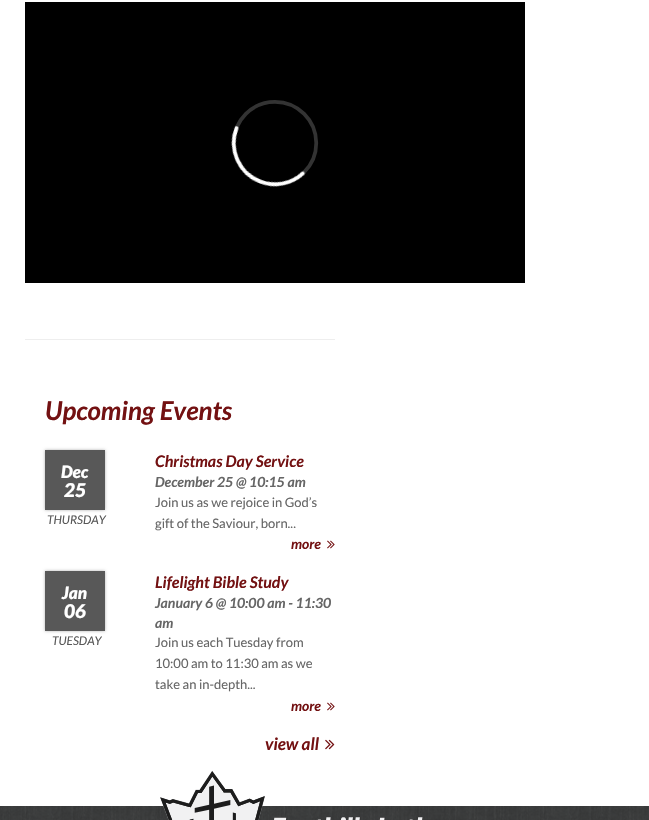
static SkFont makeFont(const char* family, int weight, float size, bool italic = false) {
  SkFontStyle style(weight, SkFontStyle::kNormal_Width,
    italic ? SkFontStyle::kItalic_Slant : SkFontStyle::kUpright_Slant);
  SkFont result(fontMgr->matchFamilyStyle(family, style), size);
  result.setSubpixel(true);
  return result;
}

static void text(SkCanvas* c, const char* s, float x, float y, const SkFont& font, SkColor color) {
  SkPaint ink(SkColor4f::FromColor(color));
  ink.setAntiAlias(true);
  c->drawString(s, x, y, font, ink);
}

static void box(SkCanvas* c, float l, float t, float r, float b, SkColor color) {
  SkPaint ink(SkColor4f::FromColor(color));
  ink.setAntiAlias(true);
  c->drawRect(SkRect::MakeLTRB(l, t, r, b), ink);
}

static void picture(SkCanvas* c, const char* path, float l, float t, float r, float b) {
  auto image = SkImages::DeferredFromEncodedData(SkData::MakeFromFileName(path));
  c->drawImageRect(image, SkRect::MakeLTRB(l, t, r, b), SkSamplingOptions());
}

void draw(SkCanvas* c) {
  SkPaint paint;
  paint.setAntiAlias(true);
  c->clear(0xffffffff);
  picture(c, "img_01.png", 25, 2, 525, 283);
  box(c, 25, 339, 335, 340, 0xffeeeeee);
  SkFont face1 = makeFont("Lato", 700, 26, true);
  text(c, "Upcoming Events", 45, 420, face1, 0xff731112);
  paint.setColor(0x4d000000);
  paint.setMaskFilter(SkMaskFilter::MakeBlur(kNormal_SkBlurStyle, 1.5f));
  c->drawRect(SkRect::MakeLTRB(45, 450, 105, 510), paint);
  paint.setMaskFilter(nullptr);
  box(c, 45, 450, 105, 510, 0xff585858);
  SkFont face2 = makeFont("Lato", 900, 17, true);
  text(c, "Dec", 61, 478, face2, 0xffffffff);
  SkFont face3 = makeFont("Lato", 900, 19, true);
  text(c, "25", 64, 497, face3, 0xffffffff);
  SkFont face4 = makeFont("Lato", 400, 12, true);
  text(c, "THURSDAY", 47, 524, face4, 0xff585858);
  SkFont face5 = makeFont("Lato", 700, 16, true);
  text(c, "Christmas Day Service", 155, 467, face5, 0xff731112);
  SkFont face6 = makeFont("Lato", 700, 14, true);
  text(c, "December 25 @ 10:15 am", 155, 487, face6, 0xff666666);
  SkFont face7 = makeFont("Lato", 400, 13);
  text(c, "Join us as we rejoice in God’s", 155, 507, face7, 0xff666666);
  text(c, "gift of the Saviour, born...", 155, 528, face7, 0xff666666);
  text(c, "more", 291, 549, face6, 0xff731112);
  picture(c, "img_02.png", 327, 540, 335, 549);
  paint.setMaskFilter(SkMaskFilter::MakeBlur(kNormal_SkBlurStyle, 1.5f));
  c->drawRect(SkRect::MakeLTRB(45, 571, 105, 631), paint);
  paint.setMaskFilter(nullptr);
  box(c, 45, 571, 105, 631, 0xff585858);
  text(c, "Jan", 62, 599, face2, 0xffffffff);
  text(c, "06", 64, 618, face3, 0xffffffff);
  text(c, "TUESDAY", 52, 645, face4, 0xff585858);
  text(c, "Lifelight Bible Study", 155, 588, face5, 0xff731112);
  text(c, "January 6 @ 10:00 am - 11:30", 155, 608, face6, 0xff666666);
  text(c, "am", 155, 628, face6, 0xff666666);
  text(c, "Join us each Tuesday from", 155, 647, face7, 0xff666666);
  text(c, "10:00 am to 11:30 am as we", 155, 668, face7, 0xff666666);
  text(c, "take an in-depth...", 155, 689, face7, 0xff666666);
  text(c, "more", 291, 711, face6, 0xff731112);
  picture(c, "img_02.png", 327, 702, 335, 711);
  SkFont face8 = makeFont("Lato", 700, 17, true);
  text(c, "view all", 265, 750, face8, 0xff731112);
  picture(c, "img_03.png", 325, 739, 335, 750);
  picture(c, "img_04.png", 0, 806, 649, 820);
  picture(c, "img_05.png", 160, 770, 423, 820);
}
